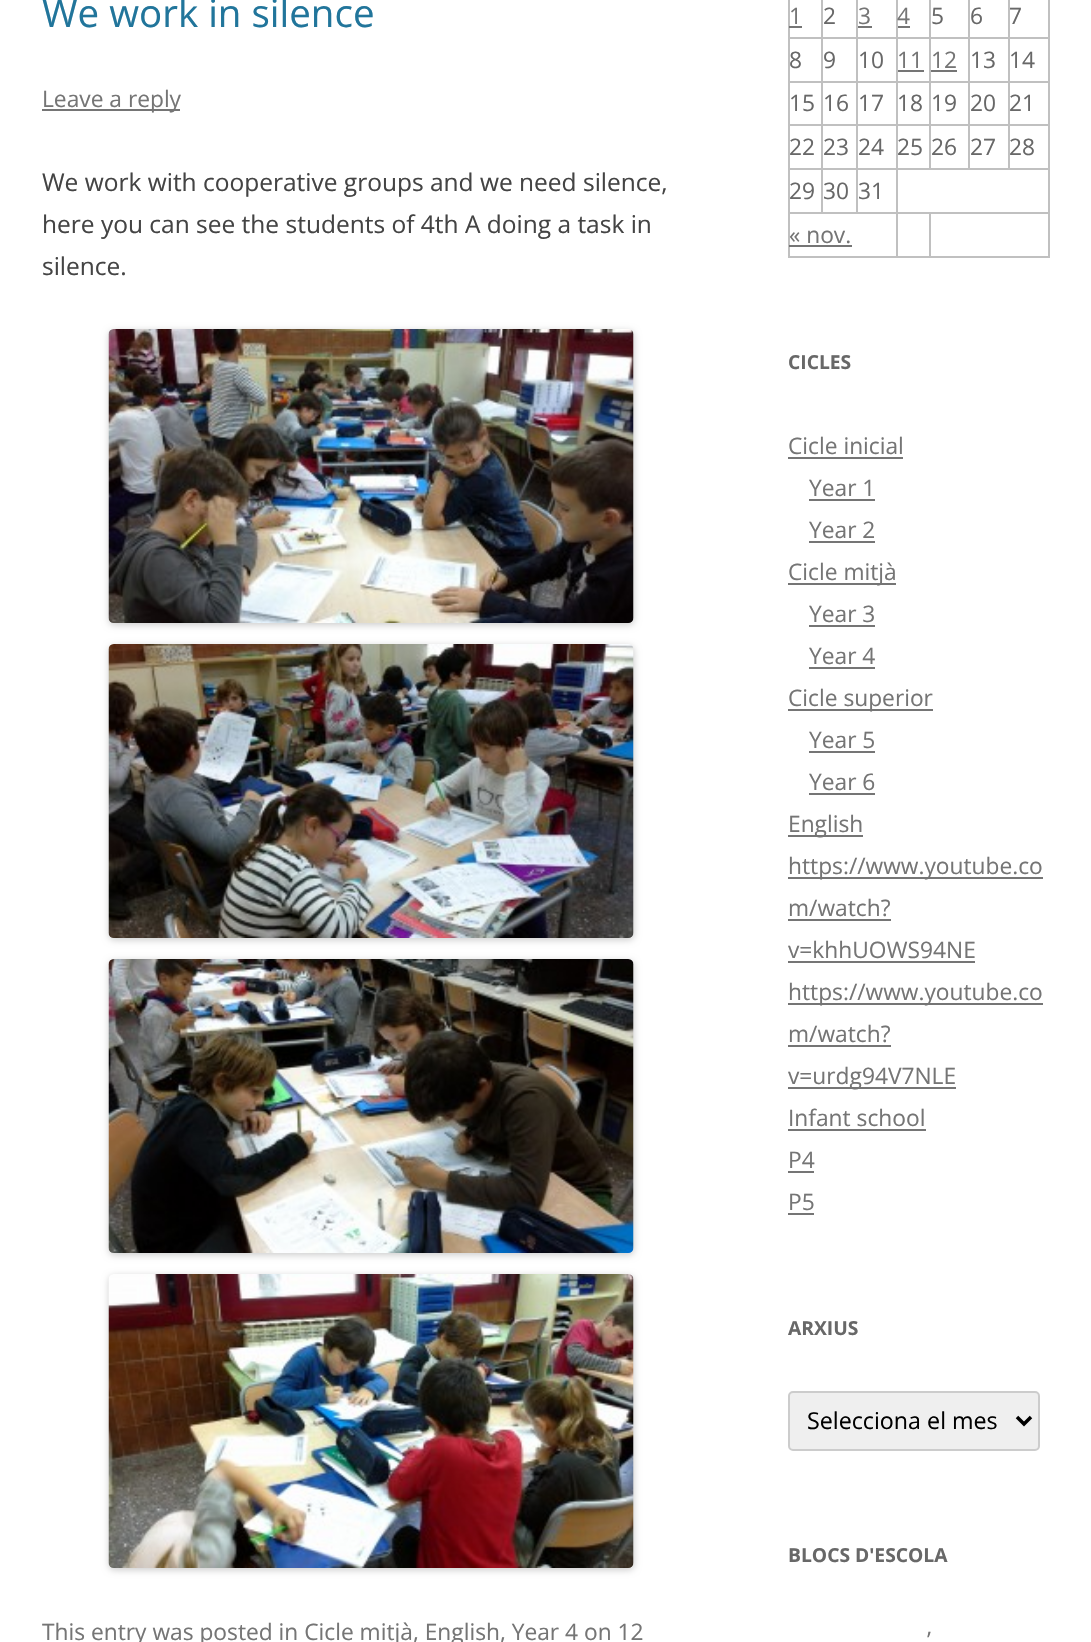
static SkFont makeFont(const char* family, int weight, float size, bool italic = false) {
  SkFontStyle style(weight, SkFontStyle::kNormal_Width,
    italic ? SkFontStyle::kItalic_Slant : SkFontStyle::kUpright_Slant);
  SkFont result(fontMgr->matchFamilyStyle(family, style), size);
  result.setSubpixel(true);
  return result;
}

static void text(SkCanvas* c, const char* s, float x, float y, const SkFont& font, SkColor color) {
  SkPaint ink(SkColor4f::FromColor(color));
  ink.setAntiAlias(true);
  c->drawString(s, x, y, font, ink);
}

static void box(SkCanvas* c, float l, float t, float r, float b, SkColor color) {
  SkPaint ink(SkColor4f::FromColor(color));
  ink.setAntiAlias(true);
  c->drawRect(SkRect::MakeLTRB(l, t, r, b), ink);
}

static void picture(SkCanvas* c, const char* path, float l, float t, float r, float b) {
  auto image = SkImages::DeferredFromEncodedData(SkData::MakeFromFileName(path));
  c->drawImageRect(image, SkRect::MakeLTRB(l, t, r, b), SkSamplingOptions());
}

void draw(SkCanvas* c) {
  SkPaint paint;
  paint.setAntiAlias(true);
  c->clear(0xffffffff);
  SkFont face1 = makeFont("Open Sans", 400, 38.5f);
  text(c, "We work in silence", 42, 27, face1, 0xff21759b);
  box(c, 42, 109, 180, 111, 0xff757575);
  SkFont face2 = makeFont("Open Sans", 400, 22.75f);
  text(c, "Leave a reply", 42, 107, face2, 0xff757575);
  SkFont face3 = makeFont("Open Sans", 400, 24.5f);
  text(c, "We work with cooperative groups and we need silence,", 42, 191, face3, 0xff444444);
  text(c, "here you can see the students of 4th A doing a task in", 42, 233, face3, 0xff444444);
  text(c, "silence.", 42, 275, face3, 0xff444444);
  paint.setColor(0x33000000);
  paint.setMaskFilter(SkMaskFilter::MakeBlur(kNormal_SkBlurStyle, 3.5f));
  c->drawRoundRect(SkRect::MakeLTRB(109, 331, 634, 625), 5, 5, paint);
  paint.setMaskFilter(nullptr);
  picture(c, "img_01.png", 108, 329, 634, 623);
  paint.setMaskFilter(SkMaskFilter::MakeBlur(kNormal_SkBlurStyle, 3.5f));
  c->drawRoundRect(SkRect::MakeLTRB(109, 646, 634, 940), 5, 5, paint);
  paint.setMaskFilter(nullptr);
  picture(c, "img_02.png", 108, 644, 634, 938);
  paint.setMaskFilter(SkMaskFilter::MakeBlur(kNormal_SkBlurStyle, 3.5f));
  c->drawRoundRect(SkRect::MakeLTRB(109, 961, 634, 1255), 5, 5, paint);
  paint.setMaskFilter(nullptr);
  picture(c, "img_03.png", 108, 959, 634, 1253);
  paint.setMaskFilter(SkMaskFilter::MakeBlur(kNormal_SkBlurStyle, 3.5f));
  c->drawRoundRect(SkRect::MakeLTRB(109, 1276, 634, 1570), 5, 5, paint);
  paint.setMaskFilter(nullptr);
  picture(c, "img_04.png", 108, 1274, 634, 1568);
  text(c, "This entry was posted in Cicle mitjà, English, Year 4 on 12", 42, 1640, face2, 0xff757575);
  text(c, "1", 789, 24, face2, 0xff757575);
  box(c, 1008, 37, 1050, 39, 0xffc0c0c0);
  box(c, 1008, 81, 1050, 83, 0xffc0c0c0);
  box(c, 1008, 124, 1050, 126, 0xffc0c0c0);
  box(c, 896, 168, 1050, 170, 0xffc0c0c0);
  box(c, 1008, 124, 1010, 170, 0xffc0c0c0);
  box(c, 968, 124, 1010, 126, 0xffc0c0c0);
  box(c, 1008, 81, 1010, 126, 0xffc0c0c0);
  box(c, 968, 81, 1010, 83, 0xffc0c0c0);
  box(c, 1008, 37, 1010, 82, 0xffc0c0c0);
  box(c, 968, 37, 1010, 39, 0xffc0c0c0);
  box(c, 968, 124, 970, 170, 0xffc0c0c0);
  box(c, 929, 124, 970, 126, 0xffc0c0c0);
  box(c, 968, 81, 970, 126, 0xffc0c0c0);
  box(c, 929, 81, 970, 83, 0xffc0c0c0);
  box(c, 968, 37, 970, 82, 0xffc0c0c0);
  box(c, 929, 37, 970, 39, 0xffc0c0c0);
  box(c, 929, 124, 931, 170, 0xffc0c0c0);
  box(c, 896, 124, 931, 126, 0xffc0c0c0);
  box(c, 929, 81, 931, 126, 0xffc0c0c0);
  box(c, 896, 81, 931, 83, 0xffc0c0c0);
  box(c, 929, 37, 931, 82, 0xffc0c0c0);
  box(c, 896, 37, 931, 39, 0xffc0c0c0);
  box(c, 1048, 168, 1050, 214, 0xffc0c0c0);
  box(c, 896, 212, 1050, 214, 0xffc0c0c0);
  box(c, 896, 168, 898, 214, 0xffc0c0c0);
  box(c, 856, 168, 898, 170, 0xffc0c0c0);
  box(c, 896, 124, 898, 170, 0xffc0c0c0);
  box(c, 856, 124, 898, 126, 0xffc0c0c0);
  box(c, 896, 81, 898, 126, 0xffc0c0c0);
  box(c, 856, 81, 898, 83, 0xffc0c0c0);
  box(c, 896, 37, 898, 82, 0xffc0c0c0);
  box(c, 856, 37, 898, 39, 0xffc0c0c0);
  box(c, 856, 212, 898, 214, 0xffc0c0c0);
  box(c, 856, 168, 858, 214, 0xffc0c0c0);
  box(c, 821, 168, 858, 170, 0xffc0c0c0);
  box(c, 856, 124, 858, 170, 0xffc0c0c0);
  box(c, 821, 124, 858, 126, 0xffc0c0c0);
  box(c, 856, 81, 858, 126, 0xffc0c0c0);
  box(c, 821, 81, 858, 83, 0xffc0c0c0);
  box(c, 856, 37, 858, 82, 0xffc0c0c0);
  box(c, 821, 37, 858, 39, 0xffc0c0c0);
  box(c, 821, 212, 858, 214, 0xffc0c0c0);
  box(c, 821, 168, 823, 214, 0xffc0c0c0);
  box(c, 788, 168, 823, 170, 0xffc0c0c0);
  box(c, 821, 124, 823, 170, 0xffc0c0c0);
  box(c, 788, 124, 823, 126, 0xffc0c0c0);
  box(c, 821, 81, 823, 126, 0xffc0c0c0);
  box(c, 788, 81, 823, 83, 0xffc0c0c0);
  box(c, 821, 37, 823, 82, 0xffc0c0c0);
  box(c, 788, 37, 823, 39, 0xffc0c0c0);
  box(c, 788, 212, 823, 214, 0xffc0c0c0);
  box(c, 788, 168, 790, 214, 0xffc0c0c0);
  box(c, 788, 124, 790, 170, 0xffc0c0c0);
  box(c, 788, 81, 790, 126, 0xffc0c0c0);
  box(c, 788, 0, 790, 82, 0xffc0c0c0);
  box(c, 789, 26, 802, 28, 0xff757575);
  box(c, 821, 0, 823, 39, 0xffc0c0c0);
  text(c, "2", 823, 24, face2, 0xff686868);
  box(c, 856, 0, 858, 39, 0xffc0c0c0);
  text(c, "3", 858, 24, face2, 0xff757575);
  box(c, 858, 26, 872, 28, 0xff757575);
  box(c, 896, 0, 898, 39, 0xffc0c0c0);
  text(c, "4", 897, 24, face2, 0xff757575);
  box(c, 898, 26, 910, 28, 0xff757575);
  box(c, 929, 0, 931, 39, 0xffc0c0c0);
  text(c, "5", 931, 24, face2, 0xff686868);
  box(c, 968, 0, 970, 39, 0xffc0c0c0);
  text(c, "6", 970, 24, face2, 0xff686868);
  box(c, 1008, 0, 1010, 39, 0xffc0c0c0);
  text(c, "7", 1009, 24, face2, 0xff686868);
  text(c, "8", 789, 68, face2, 0xff686868);
  text(c, "9", 823, 68, face2, 0xff686868);
  text(c, "10", 858, 68, face2, 0xff686868);
  text(c, "11", 897, 68, face2, 0xff757575);
  box(c, 898, 70, 924, 72, 0xff757575);
  text(c, "12", 931, 68, face2, 0xff757575);
  box(c, 931, 70, 957, 72, 0xff757575);
  text(c, "13", 970, 68, face2, 0xff686868);
  box(c, 1048, 124, 1050, 170, 0xffc0c0c0);
  box(c, 1048, 81, 1050, 126, 0xffc0c0c0);
  box(c, 1048, 0, 1050, 82, 0xffc0c0c0);
  text(c, "14", 1009, 68, face2, 0xff686868);
  text(c, "15", 789, 111, face2, 0xff686868);
  text(c, "16", 823, 111, face2, 0xff686868);
  text(c, "17", 858, 111, face2, 0xff686868);
  text(c, "18", 897, 111, face2, 0xff686868);
  text(c, "19", 931, 111, face2, 0xff686868);
  text(c, "20", 970, 111, face2, 0xff686868);
  text(c, "21", 1009, 111, face2, 0xff686868);
  text(c, "22", 789, 155, face2, 0xff686868);
  text(c, "23", 823, 155, face2, 0xff686868);
  text(c, "24", 858, 155, face2, 0xff686868);
  text(c, "25", 897, 155, face2, 0xff686868);
  text(c, "26", 931, 155, face2, 0xff686868);
  text(c, "27", 970, 155, face2, 0xff686868);
  text(c, "28", 1009, 155, face2, 0xff686868);
  text(c, "29", 789, 199, face2, 0xff686868);
  text(c, "30", 823, 199, face2, 0xff686868);
  text(c, "31", 858, 199, face2, 0xff686868);
  box(c, 1048, 212, 1050, 257, 0xffc0c0c0);
  box(c, 929, 256, 1050, 258, 0xffc0c0c0);
  box(c, 929, 212, 931, 257, 0xffc0c0c0);
  box(c, 896, 256, 931, 258, 0xffc0c0c0);
  box(c, 896, 212, 898, 257, 0xffc0c0c0);
  box(c, 788, 256, 898, 258, 0xffc0c0c0);
  box(c, 788, 212, 790, 257, 0xffc0c0c0);
  text(c, "« nov.", 789, 243, face2, 0xff757575);
  box(c, 789, 245, 852, 247, 0xff757575);
  SkFont face4 = makeFont("Open Sans", 700, 19.25f);
  text(c, "CICLES", 788, 369, face4, 0xff686868);
  text(c, "Cicle inicial", 788, 454, face2, 0xff757575);
  box(c, 788, 457, 903, 459, 0xff757575);
  text(c, "Year 1", 809, 496, face2, 0xff757575);
  box(c, 809, 499, 875, 501, 0xff757575);
  text(c, "Year 2", 809, 538, face2, 0xff757575);
  box(c, 809, 541, 875, 543, 0xff757575);
  box(c, 788, 583, 896, 585, 0xff757575);
  text(c, "Cicle mitjà", 788, 580, face2, 0xff757575);
  text(c, "Year 3", 809, 622, face2, 0xff757575);
  box(c, 809, 625, 875, 627, 0xff757575);
  text(c, "Year 4", 809, 664, face2, 0xff757575);
  box(c, 809, 667, 875, 669, 0xff757575);
  box(c, 788, 709, 933, 711, 0xff757575);
  text(c, "Cicle superior", 788, 706, face2, 0xff757575);
  text(c, "Year 5", 809, 748, face2, 0xff757575);
  box(c, 809, 751, 875, 753, 0xff757575);
  text(c, "Year 6", 809, 790, face2, 0xff757575);
  box(c, 809, 793, 875, 795, 0xff757575);
  box(c, 788, 835, 863, 837, 0xff757575);
  text(c, "English", 788, 832, face2, 0xff757575);
  box(c, 788, 877, 1043, 879, 0xff757575);
  text(c, "https://www.youtube.co", 788, 874, face2, 0xff757575);
  text(c, "m/watch?", 788, 916, face2, 0xff757575);
  box(c, 788, 919, 891, 921, 0xff757575);
  text(c, "v=khhUOWS94NE", 788, 958, face2, 0xff757575);
  box(c, 788, 961, 975, 963, 0xff757575);
  box(c, 788, 1003, 1043, 1005, 0xff757575);
  text(c, "https://www.youtube.co", 788, 1000, face2, 0xff757575);
  text(c, "m/watch?", 788, 1042, face2, 0xff757575);
  box(c, 788, 1045, 891, 1047, 0xff757575);
  box(c, 788, 1087, 956, 1089, 0xff757575);
  text(c, "v=urdg94V7NLE", 788, 1084, face2, 0xff757575);
  text(c, "Infant school", 788, 1126, face2, 0xff757575);
  box(c, 788, 1129, 926, 1131, 0xff757575);
  text(c, "P4", 788, 1168, face2, 0xff757575);
  box(c, 788, 1171, 814, 1173, 0xff757575);
  text(c, "P5", 788, 1210, face2, 0xff757575);
  box(c, 788, 1213, 814, 1215, 0xff757575);
  text(c, "ARXIUS", 788, 1335, face4, 0xff686868);
  paint.setColor(0xffefefef);
  c->drawRoundRect(SkRect::MakeLTRB(789, 1392, 1039, 1450), 4, 4, paint);
  paint.setStyle(SkPaint::kStroke_Style);
  paint.setStrokeWidth(2);
  paint.setColor(0xffcccccc);
  c->drawRoundRect(SkRect::MakeLTRB(789, 1392, 1039, 1450), 4, 4, paint);
  paint.setStrokeWidth(3.5f);
  paint.setColor(0xff000000);
  c->drawPath(SkPathBuilder().moveTo(1017, 1417).lineTo(1024, 1424).lineTo(1031, 1417).detach(), paint);
  SkFont face5 = makeFont("Open Sans", 400, 23.25f);
  text(c, "Selecciona el mes", 807, 1429, face5, 0xff000000);
  text(c, "BLOCS D'ESCOLA", 788, 1562, face4, 0xff686868);
  text(c, "’", 927, 1648, face2, 0xff757575);
}
